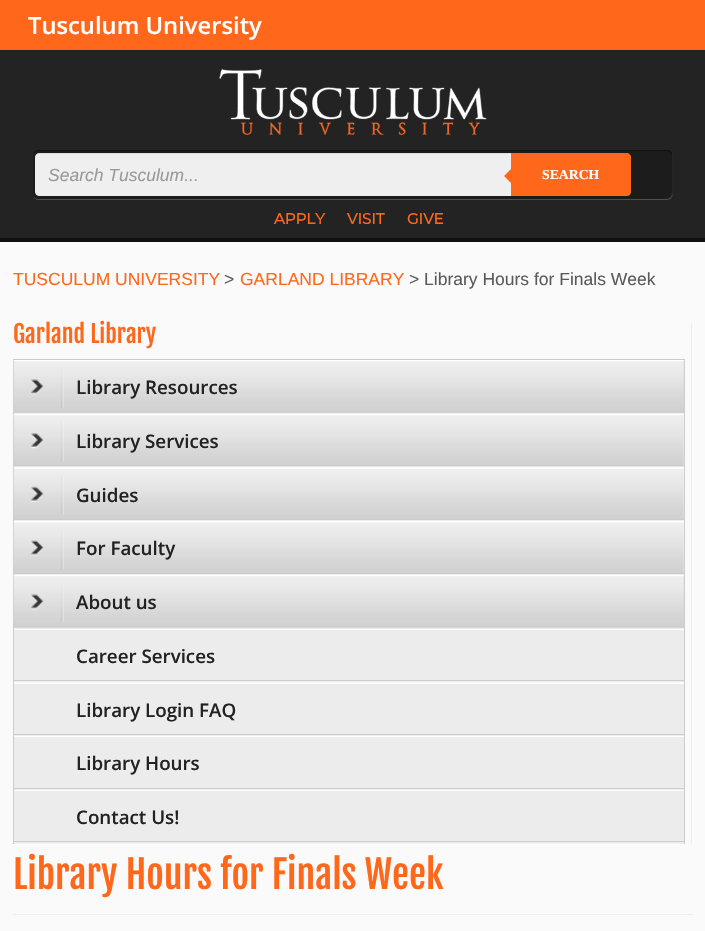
static SkFont makeFont(const char* family, int weight, float size, bool italic = false) {
  SkFontStyle style(weight, SkFontStyle::kNormal_Width,
    italic ? SkFontStyle::kItalic_Slant : SkFontStyle::kUpright_Slant);
  SkFont result(fontMgr->matchFamilyStyle(family, style), size);
  result.setSubpixel(true);
  return result;
}

static void text(SkCanvas* c, const char* s, float x, float y, const SkFont& font, SkColor color) {
  SkPaint ink(SkColor4f::FromColor(color));
  ink.setAntiAlias(true);
  c->drawString(s, x, y, font, ink);
}

static void box(SkCanvas* c, float l, float t, float r, float b, SkColor color) {
  SkPaint ink(SkColor4f::FromColor(color));
  ink.setAntiAlias(true);
  c->drawRect(SkRect::MakeLTRB(l, t, r, b), ink);
}

static void roundBox(SkCanvas* c, float l, float t, float r, float b, float radius, SkColor color) {
  SkPaint ink(SkColor4f::FromColor(color));
  ink.setAntiAlias(true);
  c->drawRoundRect(SkRect::MakeLTRB(l, t, r, b), radius, radius, ink);
}

static void picture(SkCanvas* c, const char* path, float l, float t, float r, float b) {
  auto image = SkImages::DeferredFromEncodedData(SkData::MakeFromFileName(path));
  c->drawImageRect(image, SkRect::MakeLTRB(l, t, r, b), SkSamplingOptions());
}

void draw(SkCanvas* c) {
  SkPaint paint;
  paint.setAntiAlias(true);
  c->clear(0xfffafafa);
  box(c, 0, 50, 705, 238, 0xff232323);
  box(c, 0, 238, 705, 242, 0xff101010);
  box(c, 0, 0, 705, 50, 0xffff671b);
  SkFont face1 = makeFont("Open Sans", 600, 23.75f);
  text(c, "Tusculum University", 28, 34, face1, 0xffffffff);
  picture(c, "img_01.png", 219, 69, 487, 135);
  paint.setColor(0xff4f4f4f);
  c->drawPath(SkPathBuilder().moveTo(33, 195).cubicTo(34, 198, 36, 200, 39, 200).lineTo(667, 200).cubicTo(670, 200, 673, 197, 673, 194).lineTo(673, 157).cubicTo(673, 156, 673, 154, 672, 153).lineTo(672, 156).lineTo(672, 192).cubicTo(672, 196, 670, 199, 666, 199).lineTo(39, 199).cubicTo(36, 199, 34, 197, 33, 195).close().detach(), paint);
  roundBox(c, 33, 150, 673, 199, 6, 0x33000000);
  paint.setColor(0x66000000);
  c->drawPath(SkPathBuilder().moveTo(39, 151).lineTo(666, 151).cubicTo(670, 151, 672, 154, 672, 158).lineTo(672, 194).cubicTo(672, 195, 672, 196, 671, 197).cubicTo(672, 196, 673, 195, 673, 193).lineTo(673, 156).cubicTo(673, 153, 670, 150, 667, 150).lineTo(39, 150).cubicTo(37, 150, 34, 151, 34, 154).cubicTo(35, 152, 37, 151, 39, 151).close().detach(), paint);
  paint.setColor(0xffefefef);
  c->drawPath(SkPathBuilder().moveTo(39, 153).lineTo(511, 153).lineTo(511, 196).lineTo(39, 196).cubicTo(37, 196, 35, 194, 35, 192).lineTo(35, 157).cubicTo(35, 155, 37, 153, 39, 153).close().detach(), paint);
  paint.setColor(0x12000000);
  c->drawPath(SkPathBuilder().moveTo(39, 154).lineTo(511, 154).lineTo(511, 153).lineTo(39, 153).cubicTo(36, 153, 35, 155, 35, 158).cubicTo(35, 155, 37, 154, 39, 154).close().detach(), paint);
  SkFont face2 = makeFont("Liberation Sans", 400, 17.5f, true);
  text(c, "Search Tusculum...", 48, 181, face2, 0xff999999);
  paint.setColor(0xffff671b);
  c->drawPath(SkPathBuilder().moveTo(511, 153).lineTo(627, 153).cubicTo(629, 153, 631, 155, 631, 157).lineTo(631, 192).cubicTo(631, 194, 629, 196, 627, 196).lineTo(511, 196).close().detach(), paint);
  c->drawPath(SkPathBuilder().moveTo(514, 166).lineTo(514, 186).lineTo(504, 176).close().detach(), paint);
  SkFont face3 = makeFont("Liberation Serif", 700, 13.75f);
  text(c, "SEARCH", 542, 179, face3, 0xffffffff);
  SkFont face4 = makeFont("Montserrat", 700, 15);
  text(c, "APPLY", 274, 224, face4, 0xffff671b);
  text(c, "VISIT", 347, 224, face4, 0xffff671b);
  text(c, "GIVE", 407, 224, face4, 0xffff671b);
  SkFont face5 = makeFont("Liberation Sans", 400, 17.5f);
  text(c, "TUSCULUM UNIVERSITY", 13, 285, face5, 0xffff671b);
  text(c, ">", 224, 285, face5, 0xff5a5a5a);
  text(c, "GARLAND LIBRARY", 240, 285, face5, 0xffff671b);
  text(c, "> Library Hours for Finals Week", 409, 285, face5, 0xff5a5a5a);
  box(c, 691, 323, 692, 844, 0xffeeeeee);
  SkFont face6 = makeFont("Fjalla One", 400, 24);
  text(c, "Garland Library", 13, 343, face6, 0xffff671b);
  box(c, 13, 359, 685, 360, 0xffcccccc);
  box(c, 684, 359, 685, 844, 0xffcccccc);
  box(c, 13, 359, 14, 844, 0xffcccccc);
  box(c, 14, 413, 684, 414, 0xffeeeeee);
  box(c, 14, 361, 684, 413, 0xffd7d4d4);
  picture(c, "img_02.png", 13, 360, 684, 412);
  box(c, 14, 360, 684, 361, 0xffffffff);
  box(c, 14, 411, 684, 412, 0xffcccccc);
  picture(c, "img_03.png", 31, 368, 64, 408);
  SkFont face7 = makeFont("Open Sans", 600, 18.75f);
  text(c, "Library Resources", 76, 394, face7, 0xff222222);
  box(c, 14, 466, 684, 467, 0xffeeeeee);
  picture(c, "img_04.png", 13, 414, 684, 467);
  box(c, 14, 414, 684, 415, 0xffffffff);
  box(c, 14, 465, 684, 466, 0xffcccccc);
  picture(c, "img_05.png", 31, 421, 64, 461);
  text(c, "Library Services", 76, 448, face7, 0xff222222);
  box(c, 14, 520, 684, 521, 0xffeeeeee);
  picture(c, "img_06.png", 13, 467, 684, 520);
  box(c, 14, 468, 684, 469, 0xffffffff);
  box(c, 14, 519, 684, 520, 0xffcccccc);
  picture(c, "img_07.png", 31, 475, 64, 515);
  text(c, "Guides", 76, 502, face7, 0xff222222);
  box(c, 14, 574, 684, 575, 0xffeeeeee);
  picture(c, "img_08.png", 13, 521, 684, 573);
  box(c, 14, 521, 684, 522, 0xffffffff);
  box(c, 14, 573, 684, 574, 0xffcccccc);
  picture(c, "img_09.png", 31, 529, 64, 569);
  text(c, "For Faculty", 76, 555, face7, 0xff222222);
  box(c, 14, 628, 684, 629, 0xffeeeeee);
  box(c, 14, 576, 684, 628, 0xffd7d4d4);
  picture(c, "img_02.png", 13, 575, 684, 627);
  box(c, 14, 575, 684, 576, 0xffffffff);
  box(c, 14, 626, 684, 627, 0xffcccccc);
  picture(c, "img_10.png", 31, 583, 64, 623);
  text(c, "About us", 76, 609, face7, 0xff222222);
  box(c, 14, 681, 684, 682, 0xffeeeeee);
  box(c, 14, 630, 684, 680, 0xffececec);
  box(c, 14, 629, 684, 630, 0xffffffff);
  box(c, 14, 680, 684, 681, 0xffcccccc);
  text(c, "Career Services", 76, 663, face7, 0xff222222);
  box(c, 14, 735, 684, 736, 0xffeeeeee);
  box(c, 14, 684, 684, 734, 0xffececec);
  box(c, 14, 683, 684, 684, 0xffffffff);
  box(c, 14, 734, 684, 735, 0xffcccccc);
  text(c, "Library Login FAQ", 76, 717, face7, 0xff222222);
  box(c, 14, 789, 684, 790, 0xffeeeeee);
  box(c, 14, 737, 684, 788, 0xffececec);
  box(c, 14, 736, 684, 737, 0xffffffff);
  box(c, 14, 788, 684, 789, 0xffcccccc);
  text(c, "Library Hours", 76, 770, face7, 0xff222222);
  box(c, 14, 843, 684, 844, 0xffeeeeee);
  box(c, 14, 791, 684, 843, 0xffececec);
  box(c, 14, 790, 684, 791, 0xffffffff);
  box(c, 14, 841, 684, 842, 0xffcccccc);
  text(c, "Contact Us!", 76, 824, face7, 0xff222222);
  box(c, 14, 844, 684, 845, 0xffffffff);
  box(c, 693, 323, 694, 844, 0xffffffff);
  SkFont face8 = makeFont("Fjalla One", 400, 38);
  text(c, "Library Hours for Finals Week", 13, 889, face8, 0xffff671b);
  box(c, 13, 914, 693, 915, 0xffeeeeee);
}
